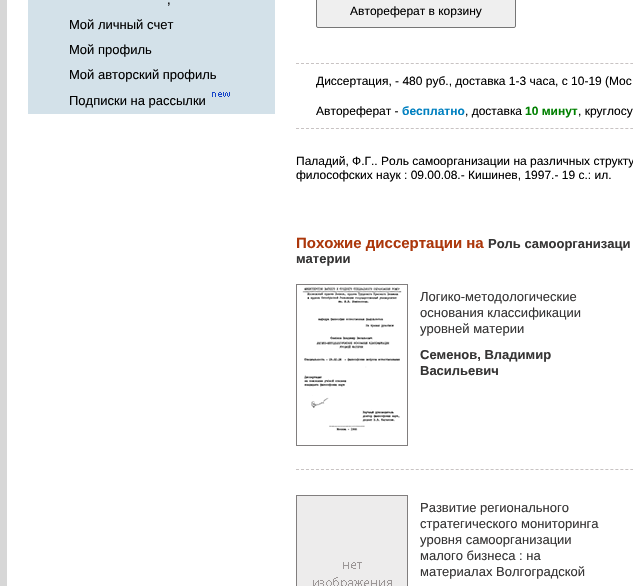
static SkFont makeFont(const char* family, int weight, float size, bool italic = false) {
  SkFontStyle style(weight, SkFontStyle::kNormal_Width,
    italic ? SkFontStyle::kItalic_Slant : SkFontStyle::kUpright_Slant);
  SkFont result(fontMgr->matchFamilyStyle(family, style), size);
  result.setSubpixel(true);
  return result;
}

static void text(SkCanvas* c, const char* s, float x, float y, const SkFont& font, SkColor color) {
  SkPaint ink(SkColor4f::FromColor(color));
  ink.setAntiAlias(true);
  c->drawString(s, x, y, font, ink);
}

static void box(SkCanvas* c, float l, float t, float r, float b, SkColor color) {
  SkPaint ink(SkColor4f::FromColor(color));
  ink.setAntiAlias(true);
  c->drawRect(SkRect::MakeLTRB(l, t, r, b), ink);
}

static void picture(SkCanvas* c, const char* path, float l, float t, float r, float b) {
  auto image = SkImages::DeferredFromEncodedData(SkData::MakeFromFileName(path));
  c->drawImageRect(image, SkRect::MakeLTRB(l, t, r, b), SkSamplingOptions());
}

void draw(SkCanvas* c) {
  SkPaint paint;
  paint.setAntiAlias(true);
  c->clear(0xffd7d7d7);
  box(c, 7, 0, 633, 586, 0xffffffff);
  box(c, 28, 0, 275, 114, 0xffd3e1e9);
  SkFont face1 = makeFont("Liberation Sans", 400, 13);
  text(c, ",", 167, 4, face1, 0xff000000);
  text(c, "Мой личный счет", 69, 29, face1, 0xff000000);
  text(c, "Мой профиль", 69, 54, face1, 0xff000000);
  text(c, "Мой авторский профиль", 69, 79, face1, 0xff000000);
  picture(c, "img_01.png", 212, 92, 230, 97);
  text(c, "Подписки на рассылки", 69, 105, face1, 0xff000000);
  paint.setColor(0xffefefef);
  c->drawRoundRect(SkRect::MakeLTRB(316.5f, -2.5f, 515.5f, 27.5f), 1.5f, 1.5f, paint);
  paint.setStyle(SkPaint::kStroke_Style);
  paint.setStrokeWidth(1);
  paint.setColor(0xff767676);
  c->drawRoundRect(SkRect::MakeLTRB(316.5f, -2.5f, 515.5f, 27.5f), 1.5f, 1.5f, paint);
  SkFont face2 = makeFont("Liberation Sans", 400, 12);
  text(c, "Автореферат в корзину", 350, 15, face2, 0xff000000);
  paint.setColor(0xffc8c3c3);
  paint.setPathEffect(SkDashPathEffect::Make({{3, 1.99f}}, 0));
  c->drawPath(SkPathBuilder().moveTo(296, 63.5f).lineTo(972, 63.5f).detach(), paint);
  paint.setPathEffect(nullptr);
  text(c, "Диссертация, - 480 руб., доставка 1-3 часа, с 10-19 (Мос", 316, 85, face2, 0xff000000);
  paint.setPathEffect(SkDashPathEffect::Make({{3, 1.99f}}, 0));
  c->drawPath(SkPathBuilder().moveTo(296, 128.5f).lineTo(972, 128.5f).detach(), paint);
  paint.setPathEffect(nullptr);
  text(c, "Автореферат -", 316, 115, face2, 0xff000000);
  SkFont face3 = makeFont("Liberation Sans", 700, 12);
  text(c, "бесплатно", 402, 115, face3, 0xff0080c0);
  text(c, ", доставка", 465, 115, face2, 0xff000000);
  text(c, "10 минут", 525, 115, face3, 0xff008000);
  text(c, ", круглосу", 578, 115, face2, 0xff000000);
  text(c, "Паладий, Ф.Г.. Роль самоорганизации на различных структу", 296, 165, face2, 0xff000000);
  text(c, "философских наук : 09.00.08.- Кишинев, 1997.- 19 с.: ил.", 296, 179, face2, 0xff000000);
  SkFont face4 = makeFont("Liberation Sans", 700, 15);
  text(c, "Похожие диссертации на", 296, 248, face4, 0xffac370b);
  SkFont face5 = makeFont("Liberation Sans", 700, 13);
  text(c, "Роль самоорганизаци", 488, 248, face5, 0xff363535);
  text(c, "материи", 296, 263, face5, 0xff363535);
  paint.setPathEffect(SkDashPathEffect::Make({{3, 1.99f}}, 0));
  c->drawPath(SkPathBuilder().moveTo(296, 469.5f).lineTo(633, 469.5f).detach(), paint);
  paint.setPathEffect(nullptr);
  paint.setColor(0xff817e7e);
  c->drawRect(SkRect::MakeLTRB(296.5f, 284.5f, 407.5f, 445.5f), paint);
  picture(c, "img_02.png", 302, 287, 402, 431);
  text(c, "Логико-методологические", 420, 301, face1, 0xff363535);
  text(c, "основания классификации", 420, 317, face1, 0xff363535);
  text(c, "уровней материи", 420, 333, face1, 0xff363535);
  text(c, "Семенов, Владимир", 420, 359, face5, 0xff363535);
  text(c, "Васильевич", 420, 375, face5, 0xff363535);
  picture(c, "img_03.png", 297, 496, 407, 586);
  c->drawRect(SkRect::MakeLTRB(296.5f, 495.5f, 407.5f, 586.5f), paint);
  text(c, "Развитие регионального", 420, 512, face1, 0xff363535);
  text(c, "стратегического мониторинга", 420, 528, face1, 0xff363535);
  text(c, "уровня самоорганизации", 420, 544, face1, 0xff363535);
  text(c, "малого бизнеса : на", 420, 560, face1, 0xff363535);
  text(c, "материалах Волгоградской", 420, 576, face1, 0xff363535);
}
